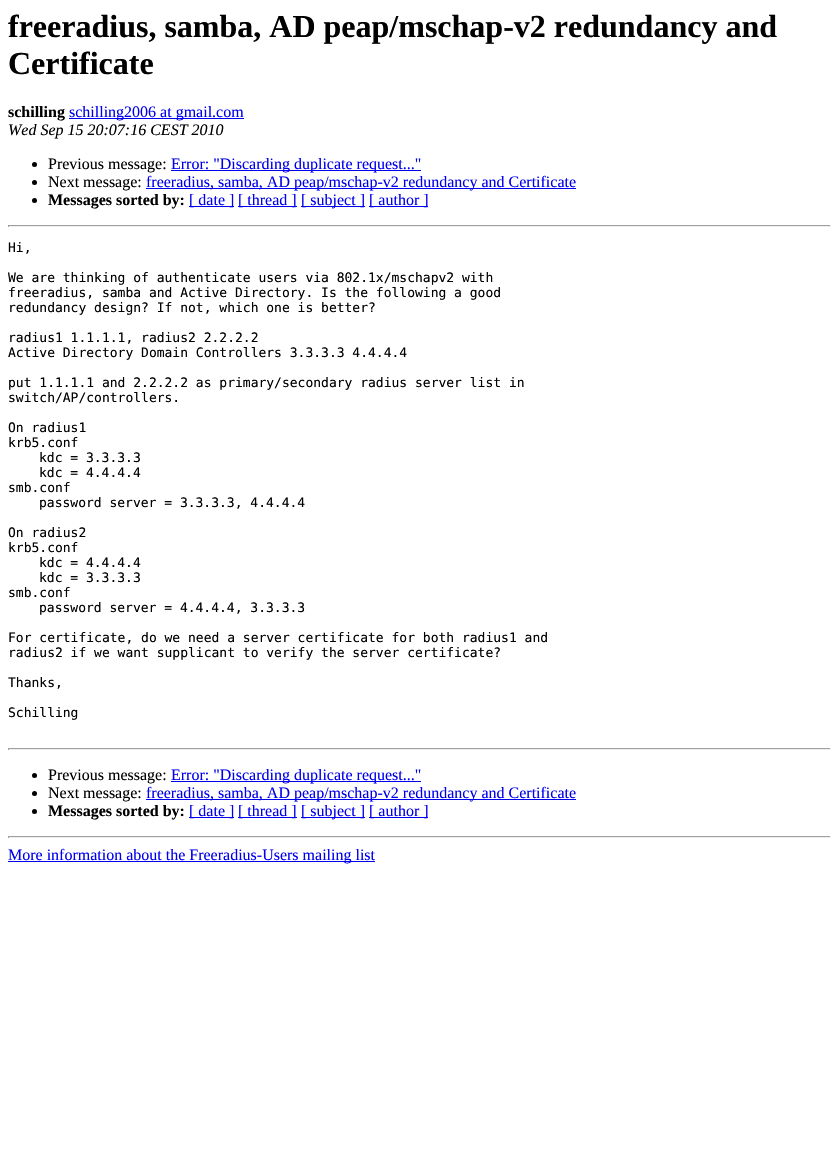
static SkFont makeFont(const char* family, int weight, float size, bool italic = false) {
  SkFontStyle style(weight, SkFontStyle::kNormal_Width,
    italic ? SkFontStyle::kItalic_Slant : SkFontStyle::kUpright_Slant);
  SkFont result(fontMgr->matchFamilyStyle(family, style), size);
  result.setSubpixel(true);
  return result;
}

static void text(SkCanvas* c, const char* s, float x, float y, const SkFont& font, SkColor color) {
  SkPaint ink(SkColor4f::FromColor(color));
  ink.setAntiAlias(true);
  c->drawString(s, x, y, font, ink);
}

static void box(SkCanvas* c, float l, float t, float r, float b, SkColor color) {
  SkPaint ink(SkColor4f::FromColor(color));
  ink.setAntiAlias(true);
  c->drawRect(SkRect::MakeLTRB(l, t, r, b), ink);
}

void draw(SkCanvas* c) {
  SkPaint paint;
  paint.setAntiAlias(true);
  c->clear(0xffffffff);
  SkFont face1 = makeFont("Liberation Serif", 700, 32);
  text(c, "freeradius, samba, AD peap/mschap-v2 redundancy and", 8, 37, face1, 0xff000000);
  text(c, "Certificate", 8, 74, face1, 0xff000000);
  SkFont face2 = makeFont("Liberation Serif", 700, 16);
  text(c, "schilling", 8, 117, face2, 0xff000000);
  box(c, 69, 118, 244, 119, 0xff0000ee);
  SkFont face3 = makeFont("Liberation Serif", 400, 16);
  text(c, "schilling2006 at gmail.com", 69, 117, face3, 0xff0000ee);
  SkFont face4 = makeFont("Liberation Serif", 400, 16, true);
  text(c, "Wed Sep 15 20:07:16 CEST 2010", 8, 135, face4, 0xff000000);
  paint.setColor(0xff000000);
  c->drawCircle(34.5f, 164.5f, 2.5f, paint);
  text(c, "Previous message:", 48, 169, face3, 0xff000000);
  box(c, 171, 170, 421, 171, 0xff0000ee);
  text(c, "Error: \"Discarding duplicate request...\"", 171, 169, face3, 0xff0000ee);
  c->drawCircle(34.5f, 182.5f, 2.5f, paint);
  text(c, "Next message:", 48, 187, face3, 0xff000000);
  box(c, 146, 188, 576, 189, 0xff0000ee);
  text(c, "freeradius, samba, AD peap/mschap-v2 redundancy and Certificate", 146, 187, face3, 0xff0000ee);
  c->drawCircle(34.5f, 200.5f, 2.5f, paint);
  text(c, "Messages sorted by:", 48, 205, face2, 0xff000000);
  box(c, 189, 206, 234, 207, 0xff0000ee);
  text(c, "[ date ]", 189, 205, face3, 0xff0000ee);
  box(c, 238, 206, 297, 207, 0xff0000ee);
  text(c, "[ thread ]", 238, 205, face3, 0xff0000ee);
  box(c, 301, 206, 365, 207, 0xff0000ee);
  text(c, "[ subject ]", 301, 205, face3, 0xff0000ee);
  box(c, 369, 206, 428, 207, 0xff0000ee);
  text(c, "[ author ]", 369, 205, face3, 0xff0000ee);
  box(c, 8, 225, 831, 226, 0xff9f9f9f);
  box(c, 830, 225, 831, 227, 0xffeeeeee);
  box(c, 8, 226, 831, 227, 0xffeeeeee);
  box(c, 8, 225, 9, 227, 0xff9f9f9f);
  SkFont face5 = makeFont("DejaVu Sans Mono", 400, 13);
  text(c, "Hi,", 8, 252, face5, 0xff000000);
  text(c, "We are thinking of authenticate users via 802.1x/mschapv2 with", 8, 282, face5, 0xff000000);
  text(c, "freeradius, samba and Active Directory. Is the following a good", 8, 297, face5, 0xff000000);
  text(c, "redundancy design? If not, which one is better?", 8, 312, face5, 0xff000000);
  text(c, "radius1 1.1.1.1, radius2 2.2.2.2", 8, 342, face5, 0xff000000);
  text(c, "Active Directory Domain Controllers 3.3.3.3 4.4.4.4", 8, 357, face5, 0xff000000);
  text(c, "put 1.1.1.1 and 2.2.2.2 as primary/secondary radius server list in", 8, 387, face5, 0xff000000);
  text(c, "switch/AP/controllers.", 8, 402, face5, 0xff000000);
  text(c, "On radius1", 8, 432, face5, 0xff000000);
  text(c, "krb5.conf", 8, 447, face5, 0xff000000);
  text(c, "kdc = 3.3.3.3", 39, 462, face5, 0xff000000);
  text(c, "kdc = 4.4.4.4", 39, 477, face5, 0xff000000);
  text(c, "smb.conf", 8, 492, face5, 0xff000000);
  text(c, "password server = 3.3.3.3, 4.4.4.4", 39, 507, face5, 0xff000000);
  text(c, "On radius2", 8, 537, face5, 0xff000000);
  text(c, "krb5.conf", 8, 552, face5, 0xff000000);
  text(c, "kdc = 4.4.4.4", 39, 567, face5, 0xff000000);
  text(c, "kdc = 3.3.3.3", 39, 582, face5, 0xff000000);
  text(c, "smb.conf", 8, 597, face5, 0xff000000);
  text(c, "password server = 4.4.4.4, 3.3.3.3", 39, 612, face5, 0xff000000);
  text(c, "For certificate, do we need a server certificate for both radius1 and", 8, 642, face5, 0xff000000);
  text(c, "radius2 if we want supplicant to verify the server certificate?", 8, 657, face5, 0xff000000);
  text(c, "Thanks,", 8, 687, face5, 0xff000000);
  text(c, "Schilling", 8, 717, face5, 0xff000000);
  box(c, 8, 748, 831, 749, 0xff9f9f9f);
  box(c, 830, 748, 831, 750, 0xffeeeeee);
  box(c, 8, 749, 831, 750, 0xffeeeeee);
  box(c, 8, 748, 9, 750, 0xff9f9f9f);
  c->drawCircle(34.5f, 775.5f, 2.5f, paint);
  text(c, "Previous message:", 48, 780, face3, 0xff000000);
  box(c, 171, 781, 421, 782, 0xff0000ee);
  text(c, "Error: \"Discarding duplicate request...\"", 171, 780, face3, 0xff0000ee);
  c->drawCircle(34.5f, 793.5f, 2.5f, paint);
  text(c, "Next message:", 48, 798, face3, 0xff000000);
  box(c, 146, 799, 576, 800, 0xff0000ee);
  text(c, "freeradius, samba, AD peap/mschap-v2 redundancy and Certificate", 146, 798, face3, 0xff0000ee);
  c->drawCircle(34.5f, 811.5f, 2.5f, paint);
  text(c, "Messages sorted by:", 48, 816, face2, 0xff000000);
  box(c, 189, 817, 234, 818, 0xff0000ee);
  text(c, "[ date ]", 189, 816, face3, 0xff0000ee);
  box(c, 238, 817, 297, 818, 0xff0000ee);
  text(c, "[ thread ]", 238, 816, face3, 0xff0000ee);
  box(c, 301, 817, 365, 818, 0xff0000ee);
  text(c, "[ subject ]", 301, 816, face3, 0xff0000ee);
  box(c, 369, 817, 428, 818, 0xff0000ee);
  text(c, "[ author ]", 369, 816, face3, 0xff0000ee);
  box(c, 8, 836, 831, 837, 0xff9f9f9f);
  box(c, 830, 836, 831, 838, 0xffeeeeee);
  box(c, 8, 837, 831, 838, 0xffeeeeee);
  box(c, 8, 836, 9, 838, 0xff9f9f9f);
  box(c, 8, 861, 375, 862, 0xff0000ee);
  text(c, "More information about the Freeradius-Users mailing list", 8, 860, face3, 0xff0000ee);
}
